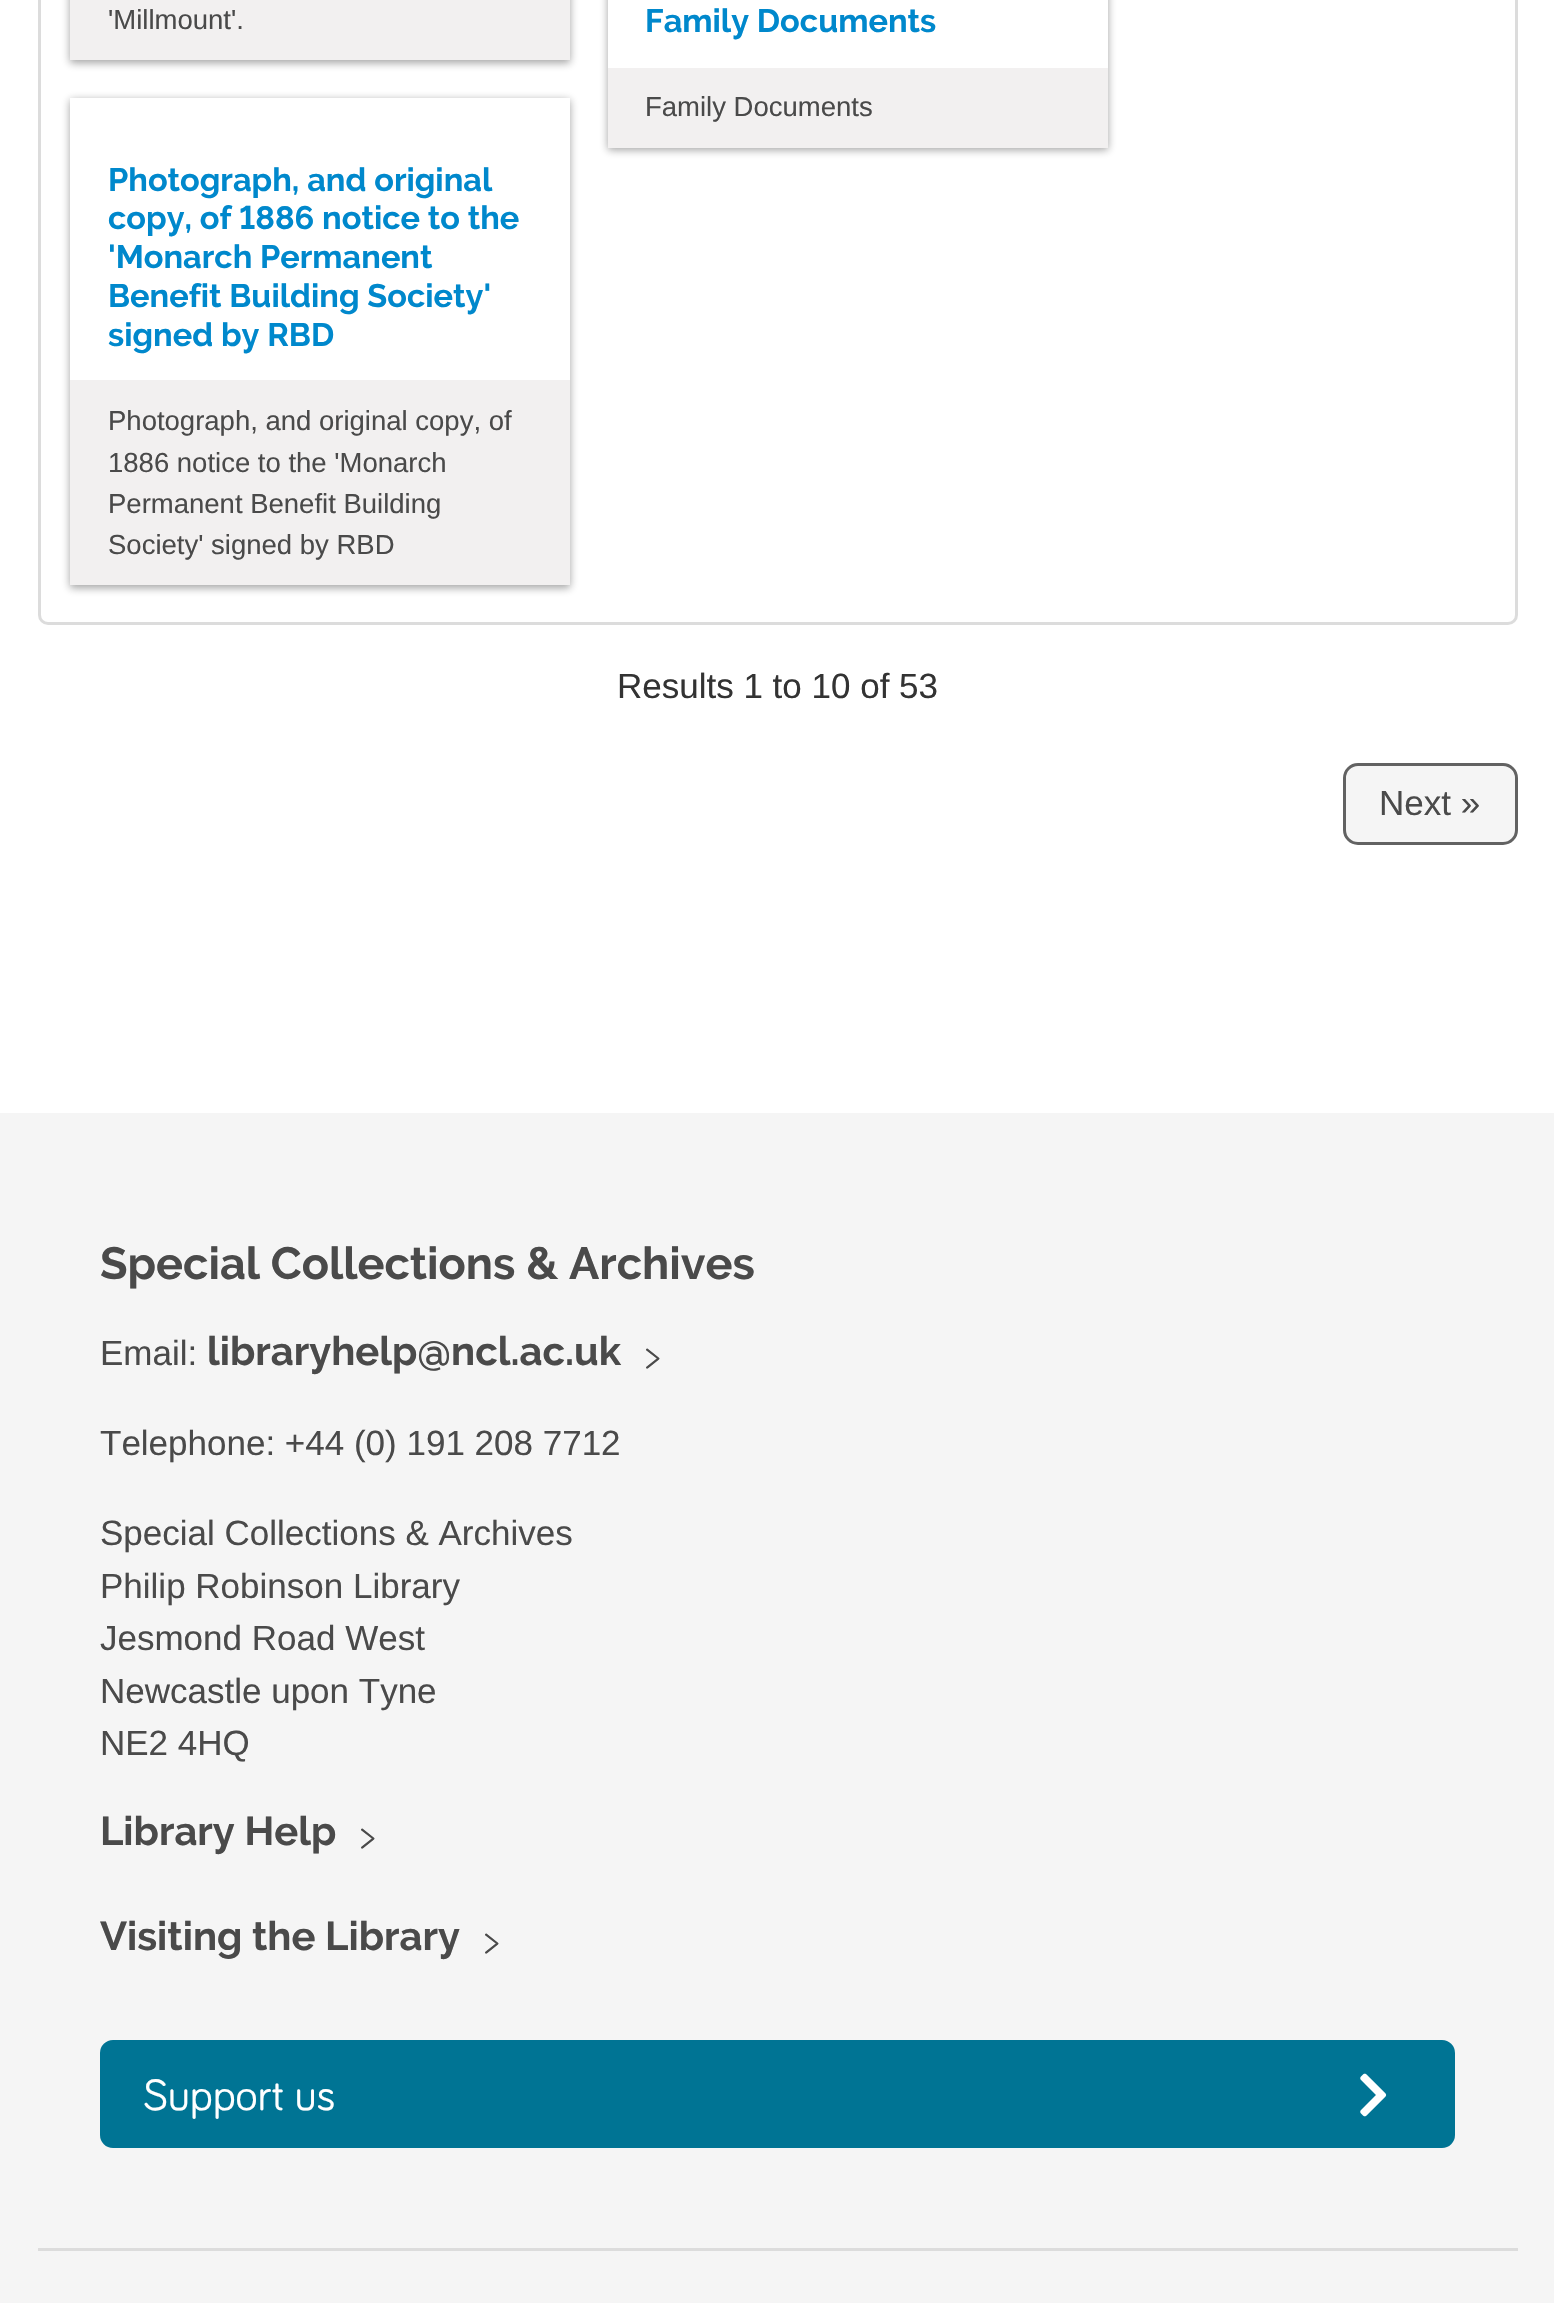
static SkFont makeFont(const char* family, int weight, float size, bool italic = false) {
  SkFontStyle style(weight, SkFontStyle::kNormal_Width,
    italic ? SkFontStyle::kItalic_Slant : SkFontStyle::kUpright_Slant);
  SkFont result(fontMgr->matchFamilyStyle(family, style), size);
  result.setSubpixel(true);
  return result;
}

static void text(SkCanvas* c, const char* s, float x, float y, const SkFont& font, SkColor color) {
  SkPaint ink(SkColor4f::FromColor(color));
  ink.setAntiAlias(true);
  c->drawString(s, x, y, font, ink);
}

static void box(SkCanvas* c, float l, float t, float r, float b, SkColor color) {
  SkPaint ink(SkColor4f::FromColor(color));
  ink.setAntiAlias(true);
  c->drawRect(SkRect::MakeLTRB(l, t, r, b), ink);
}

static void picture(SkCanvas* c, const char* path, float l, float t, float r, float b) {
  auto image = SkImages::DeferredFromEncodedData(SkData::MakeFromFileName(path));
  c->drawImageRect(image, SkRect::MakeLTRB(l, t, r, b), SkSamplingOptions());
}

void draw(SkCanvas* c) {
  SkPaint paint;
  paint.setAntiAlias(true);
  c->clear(0xffffffff);
  paint.setStyle(SkPaint::kStroke_Style);
  paint.setStrokeWidth(3);
  paint.setColor(0xffdcdcdc);
  c->drawRoundRect(SkRect::MakeLTRB(39.5f, -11.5f, 1516.5f, 623.5f), 8.5f, 8.5f, paint);
  paint.setStyle(SkPaint::kFill_Style);
  paint.setColor(0x66191919);
  paint.setMaskFilter(SkMaskFilter::MakeBlur(kNormal_SkBlurStyle, 4));
  c->drawRect(SkRect::MakeLTRB(70, -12, 570, 63), paint);
  paint.setMaskFilter(nullptr);
  box(c, 70, 0, 570, 60, 0xfff2f0f0);
  SkFont face1 = makeFont("Liberation Sans", 400, 27.5f);
  text(c, "'Millmount'.", 108, 29, face1, 0xff4a4a4a);
  paint.setMaskFilter(SkMaskFilter::MakeBlur(kNormal_SkBlurStyle, 4));
  c->drawRect(SkRect::MakeLTRB(608, -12, 1108, 150), paint);
  paint.setMaskFilter(nullptr);
  box(c, 608, 0, 1108, 68, 0xffffffff);
  SkFont face2 = makeFont("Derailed", 700, 32.5f);
  text(c, "Family Documents", 645, 32, face2, 0xff0088cc);
  box(c, 608, 68, 1108, 148, 0xfff2f0f0);
  text(c, "Family Documents", 645, 116, face1, 0xff4a4a4a);
  c->save();
  c->clipPath(SkPathBuilder(SkPathFillType::kEvenOdd).moveTo(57, 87).lineTo(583, 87).lineTo(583, 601).lineTo(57, 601).close().moveTo(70, 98).lineTo(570, 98).lineTo(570, 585).lineTo(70, 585).close().detach(), true);
  paint.setMaskFilter(SkMaskFilter::MakeBlur(kNormal_SkBlurStyle, 4));
  c->drawRect(SkRect::MakeLTRB(70, 100, 570, 588), paint);
  paint.setMaskFilter(nullptr);
  c->restore();
  text(c, "Photograph, and original", 108, 191, face2, 0xff0088cc);
  text(c, "copy, of 1886 notice to the", 108, 229, face2, 0xff0088cc);
  text(c, "'Monarch Permanent", 108, 268, face2, 0xff0088cc);
  text(c, "Benefit Building Society'", 108, 307, face2, 0xff0088cc);
  text(c, "signed by RBD", 108, 346, face2, 0xff0088cc);
  box(c, 70, 380, 570, 585, 0xfff2f0f0);
  text(c, "Photograph, and original copy, of", 108, 430, face1, 0xff4a4a4a);
  text(c, "1886 notice to the 'Monarch", 108, 472, face1, 0xff4a4a4a);
  text(c, "Permanent Benefit Building", 108, 513, face1, 0xff4a4a4a);
  text(c, "Society' signed by RBD", 108, 554, face1, 0xff4a4a4a);
  SkFont face3 = makeFont("Liberation Sans", 400, 35);
  text(c, "Results 1 to 10 of 53", 617, 698, face3, 0xff333333);
  paint.setColor(0xfff5f5f5);
  c->drawRoundRect(SkRect::MakeLTRB(1344.5f, 764.5f, 1516.5f, 843.5f), 13.5f, 13.5f, paint);
  paint.setStyle(SkPaint::kStroke_Style);
  paint.setColor(0xff626262);
  c->drawRoundRect(SkRect::MakeLTRB(1344.5f, 764.5f, 1516.5f, 843.5f), 13.5f, 13.5f, paint);
  text(c, "Next »", 1379, 815, face3, 0xff4a4a4a);
  box(c, 0, 1113, 1554, 2303, 0xfff5f5f5);
  box(c, 38, 2248, 1518, 2251, 0xffdcdcdc);
  SkFont face4 = makeFont("Derailed", 700, 45);
  text(c, "Special Collections & Archives", 100, 1279, face4, 0xff4a4a4a);
  text(c, "Email:", 100, 1365, face3, 0xff4a4a4a);
  SkFont face5 = makeFont("Derailed", 700, 40);
  text(c, "libraryhelp@ncl.ac.uk", 207, 1365, face5, 0xff4a4a4a);
  SkFont face6 = makeFont("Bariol", 400, 40);
  text(c, ">", 646, 1368, face6, 0xff4a4a4a);
  text(c, "Telephone: +44 (0) 191 208 7712", 100, 1455, face3, 0xff4a4a4a);
  text(c, "Special Collections & Archives", 100, 1545, face3, 0xff4a4a4a);
  text(c, "Philip Robinson Library", 100, 1598, face3, 0xff4a4a4a);
  text(c, "Jesmond Road West", 100, 1650, face3, 0xff4a4a4a);
  text(c, "Newcastle upon Tyne", 100, 1703, face3, 0xff4a4a4a);
  text(c, "NE2 4HQ", 100, 1755, face3, 0xff4a4a4a);
  text(c, "Library Help", 100, 1845, face5, 0xff4a4a4a);
  text(c, ">", 361, 1848, face6, 0xff4a4a4a);
  text(c, "Visiting the Library", 100, 1950, face5, 0xff4a4a4a);
  text(c, ">", 485, 1953, face6, 0xff4a4a4a);
  paint.setStyle(SkPaint::kFill_Style);
  paint.setColor(0xff007494);
  c->drawRoundRect(SkRect::MakeLTRB(102.5f, 2042.5f, 1452.5f, 2145.5f), 10.5f, 10.5f, paint);
  paint.setStyle(SkPaint::kStroke_Style);
  paint.setStrokeWidth(5);
  c->drawRoundRect(SkRect::MakeLTRB(102.5f, 2042.5f, 1452.5f, 2145.5f), 10.5f, 10.5f, paint);
  SkFont face7 = makeFont("Bariol", 400, 45);
  text(c, "Support us", 143, 2110, face7, 0xffffffff);
  picture(c, "img_01.png", 1360, 2073, 1387, 2117);
}
